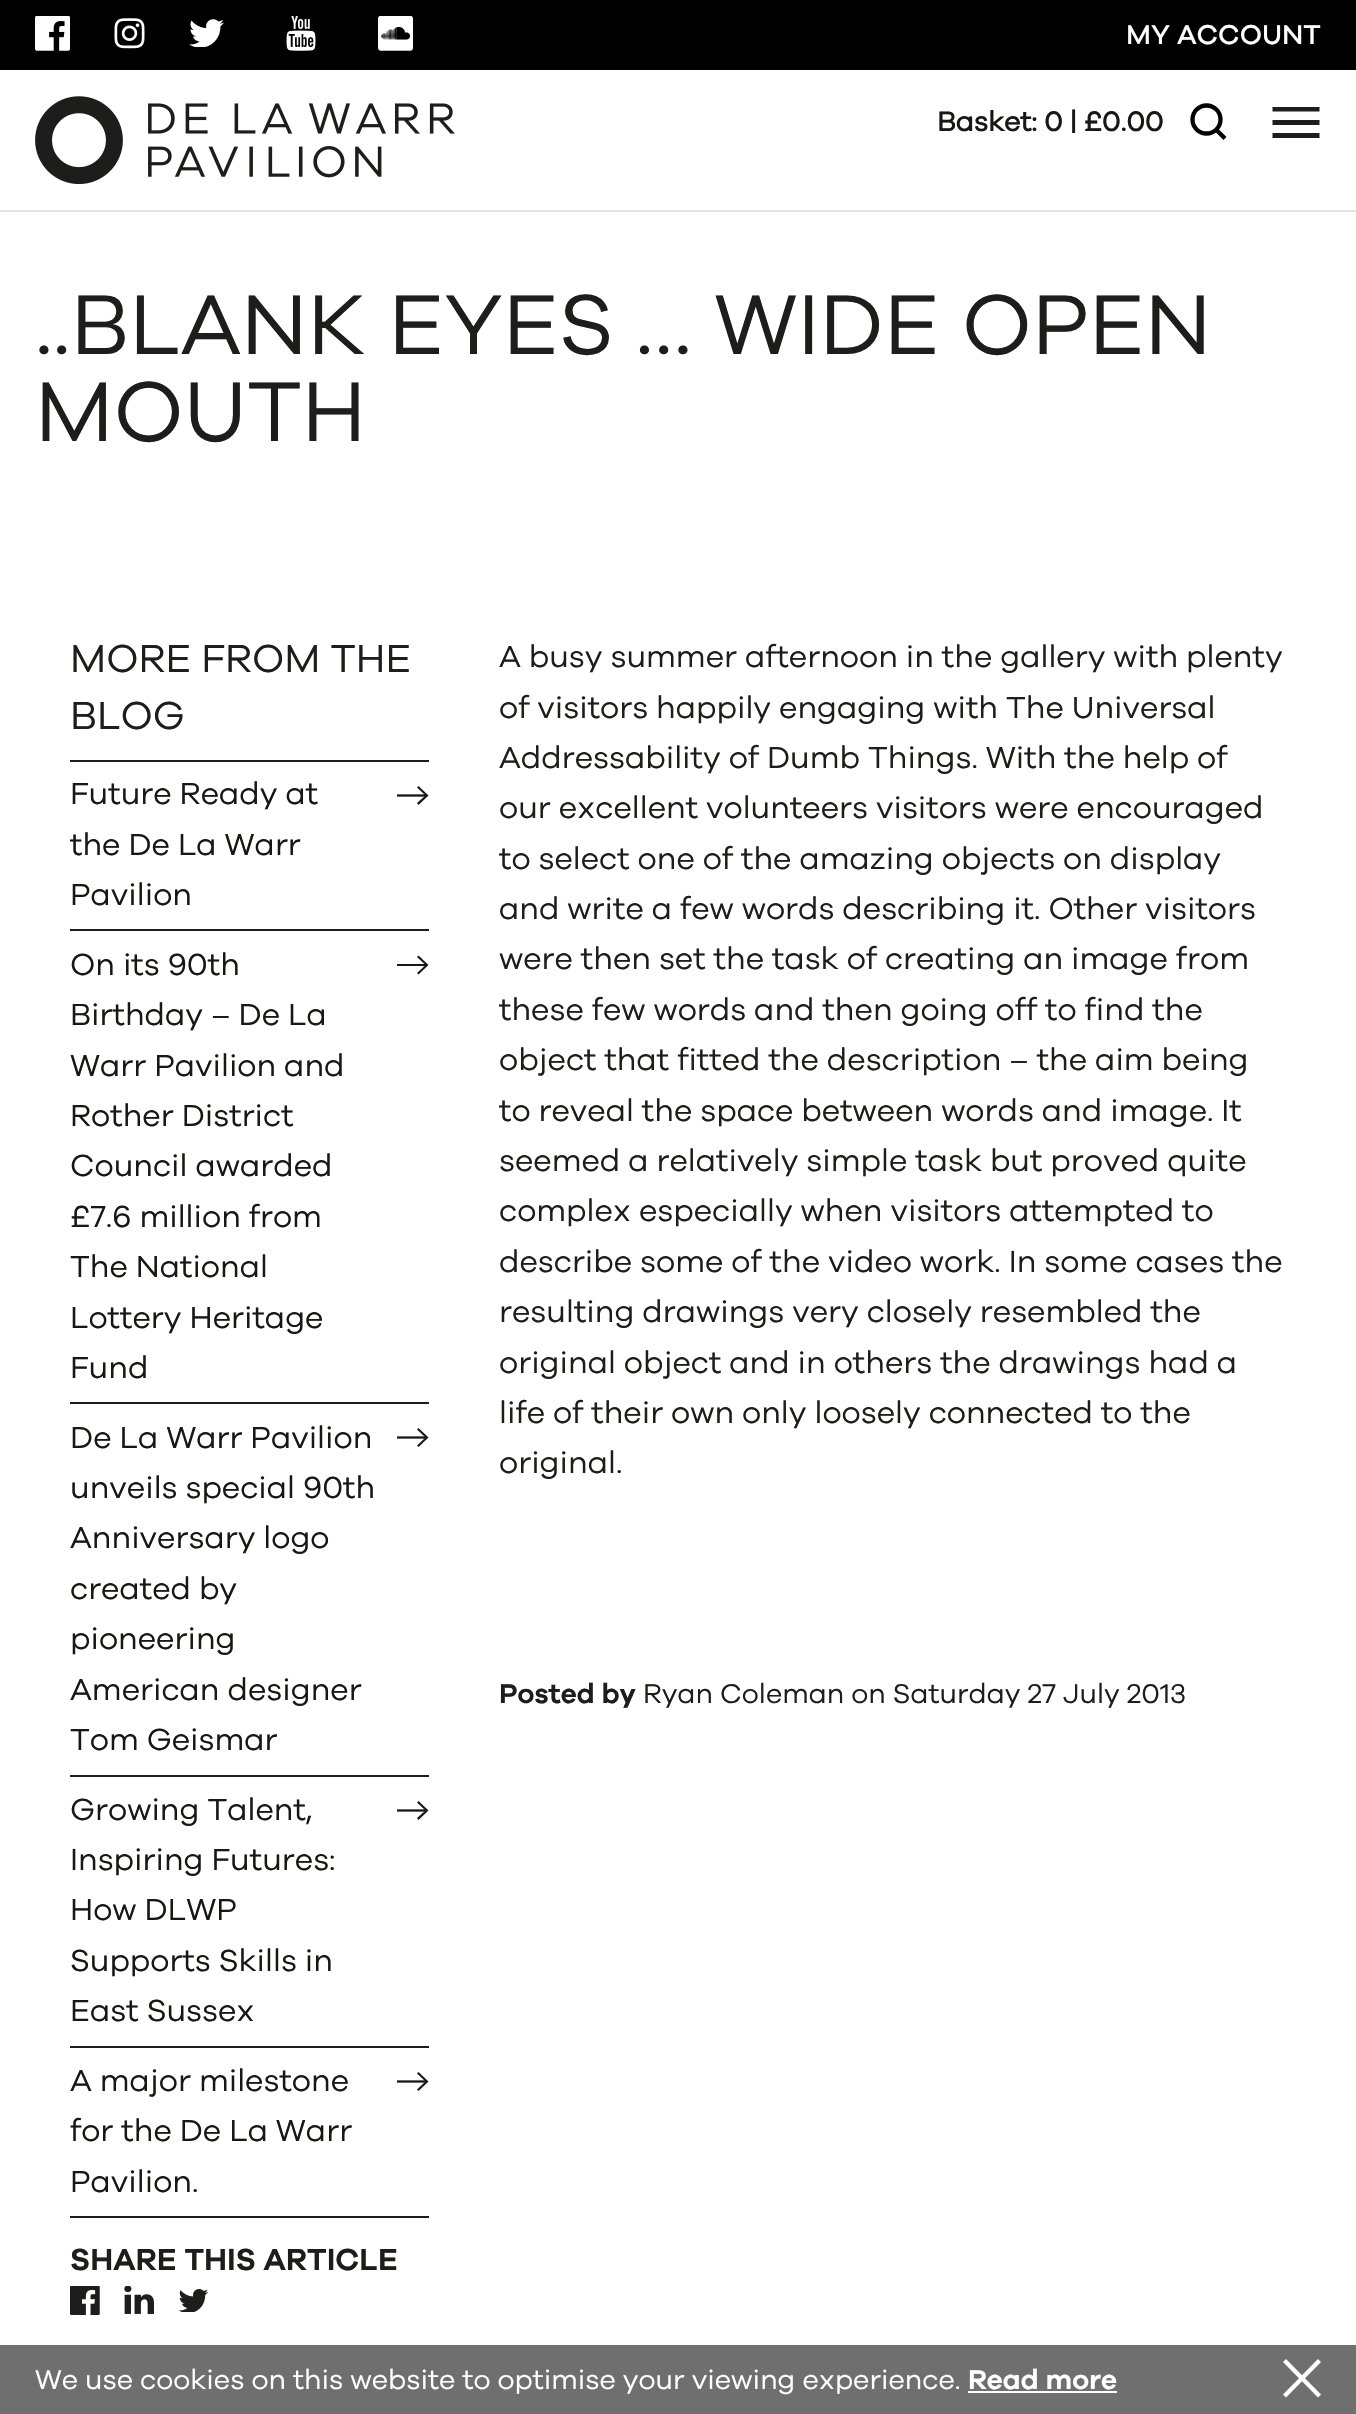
static SkFont makeFont(const char* family, int weight, float size, bool italic = false) {
  SkFontStyle style(weight, SkFontStyle::kNormal_Width,
    italic ? SkFontStyle::kItalic_Slant : SkFontStyle::kUpright_Slant);
  SkFont result(fontMgr->matchFamilyStyle(family, style), size);
  result.setSubpixel(true);
  return result;
}

static void text(SkCanvas* c, const char* s, float x, float y, const SkFont& font, SkColor color) {
  SkPaint ink(SkColor4f::FromColor(color));
  ink.setAntiAlias(true);
  c->drawString(s, x, y, font, ink);
}

static void box(SkCanvas* c, float l, float t, float r, float b, SkColor color) {
  SkPaint ink(SkColor4f::FromColor(color));
  ink.setAntiAlias(true);
  c->drawRect(SkRect::MakeLTRB(l, t, r, b), ink);
}

static void picture(SkCanvas* c, const char* path, float l, float t, float r, float b) {
  auto image = SkImages::DeferredFromEncodedData(SkData::MakeFromFileName(path));
  c->drawImageRect(image, SkRect::MakeLTRB(l, t, r, b), SkSamplingOptions());
}

void draw(SkCanvas* c) {
  SkPaint paint;
  paint.setAntiAlias(true);
  c->clear(0xffffffff);
  box(c, 0, 0, 1356, 70, 0xff000000);
  picture(c, "img_01.png", 35, 16, 70, 51);
  picture(c, "img_02.png", 114, 18, 145, 49);
  picture(c, "img_03.png", 189, 19, 224, 47);
  picture(c, "img_04.png", 286, 16, 316, 51);
  picture(c, "img_05.png", 378, 16, 413, 51);
  SkFont face1 = makeFont("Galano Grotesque", 500, 28);
  text(c, "MY ACCOUNT", 1126, 44, face1, 0xffffffff);
  box(c, 0, 210, 1356, 212, 0xffe3e3e3);
  picture(c, "img_06.png", 35, 96, 455, 184);
  SkFont face2 = makeFont("Galano Grotesque", 700, 28);
  text(c, "Basket: 0 | £0.00", 937, 131, face2, 0xff171714);
  paint.setStyle(SkPaint::kStroke_Style);
  paint.setStrokeWidth(4.3f);
  paint.setColor(0xff000000);
  c->drawCircle(1206.5f, 119.5f, 14, paint);
  c->drawPath(SkPathBuilder().moveTo(1216.5f, 130).lineTo(1225, 138.5f).detach(), paint);
  c->save();
  c->clipRect(SkRect::MakeLTRB(1272, 107, 1320, 138));
  paint.setStrokeWidth(4.9f);
  paint.setColor(0xff1d1d1b);
  c->drawPath(SkPathBuilder().moveTo(1272.5f, 109).lineTo(1319.5f, 109).moveTo(1272.5f, 122.5f).lineTo(1319.5f, 122.5f).moveTo(1272.5f, 135.5f).lineTo(1319.5f, 135.5f).detach(), paint);
  c->restore();
  SkFont face3 = makeFont("Galano Grotesque", 400, 87.5f);
  text(c, "..BLANK EYES … WIDE OPEN", 35, 354, face3, 0xff1d1d1b);
  text(c, "MOUTH", 35, 441, face3, 0xff1d1d1b);
  SkFont face4 = makeFont("Galano Grotesque", 400, 40.25f);
  text(c, "MORE FROM THE", 70, 672, face4, 0xff1d1d1b);
  text(c, "BLOG", 70, 729, face4, 0xff1d1d1b);
  box(c, 70, 760, 429, 762, 0xff1d1d1b);
  paint.setStrokeWidth(2.3f);
  paint.setColor(0xff171714);
  c->drawPath(SkPathBuilder().moveTo(397, 795.5f).lineTo(426, 795.5f).detach(), paint);
  paint.setStyle(SkPaint::kFill_Style);
  c->drawPath(SkPathBuilder().moveTo(418.5f, 805).lineTo(417, 803).lineTo(425.5f, 795.5f).lineTo(417, 787.5f).lineTo(418.5f, 786).lineTo(428.5f, 795.5f).close().detach(), paint);
  SkFont face5 = makeFont("Galano Grotesque", 400, 31.5f);
  text(c, "Future Ready at", 70, 804, face5, 0xff171714);
  text(c, "the De La Warr", 70, 855, face5, 0xff171714);
  text(c, "Pavilion", 70, 905, face5, 0xff171714);
  box(c, 70, 929, 429, 931, 0xff1d1d1b);
  box(c, 397, 964, 426, 966, 0xff171714);
  c->drawPath(SkPathBuilder().moveTo(418.5f, 974.5f).lineTo(417, 973).lineTo(425.5f, 965).lineTo(417, 957).lineTo(418.5f, 955.5f).lineTo(428.5f, 965).close().detach(), paint);
  text(c, "On its 90th", 70, 975, face5, 0xff171714);
  text(c, "Birthday – De La", 70, 1025, face5, 0xff171714);
  text(c, "Warr Pavilion and", 70, 1076, face5, 0xff171714);
  text(c, "Rother District", 70, 1126, face5, 0xff171714);
  text(c, "Council awarded", 70, 1176, face5, 0xff171714);
  text(c, "£7.6 million from", 70, 1227, face5, 0xff171714);
  text(c, "The National", 70, 1277, face5, 0xff171714);
  text(c, "Lottery Heritage", 70, 1328, face5, 0xff171714);
  text(c, "Fund", 70, 1378, face5, 0xff171714);
  box(c, 70, 1402, 429, 1404, 0xff1d1d1b);
  paint.setStyle(SkPaint::kStroke_Style);
  c->drawPath(SkPathBuilder().moveTo(397, 1437.5f).lineTo(426, 1437.5f).detach(), paint);
  paint.setStyle(SkPaint::kFill_Style);
  c->drawPath(SkPathBuilder().moveTo(418.5f, 1447).lineTo(417, 1445.5f).lineTo(425.5f, 1437.5f).lineTo(417, 1429.5f).lineTo(418.5f, 1428).lineTo(428.5f, 1437.5f).close().detach(), paint);
  text(c, "De La Warr Pavilion", 70, 1448, face5, 0xff171714);
  text(c, "unveils special 90th", 70, 1498, face5, 0xff171714);
  text(c, "Anniversary logo", 70, 1548, face5, 0xff171714);
  text(c, "created by", 70, 1599, face5, 0xff171714);
  text(c, "pioneering", 70, 1649, face5, 0xff171714);
  text(c, "American designer", 70, 1700, face5, 0xff171714);
  text(c, "Tom Geismar", 70, 1750, face5, 0xff171714);
  box(c, 70, 1775, 429, 1777, 0xff1d1d1b);
  paint.setStyle(SkPaint::kStroke_Style);
  c->drawPath(SkPathBuilder().moveTo(397, 1810.5f).lineTo(426, 1810.5f).detach(), paint);
  paint.setStyle(SkPaint::kFill_Style);
  c->drawPath(SkPathBuilder().moveTo(418.5f, 1820).lineTo(417, 1818).lineTo(425.5f, 1810.5f).lineTo(417, 1802.5f).lineTo(418.5f, 1801).lineTo(428.5f, 1810.5f).close().detach(), paint);
  text(c, "Growing Talent,", 70, 1820, face5, 0xff171714);
  text(c, "Inspiring Futures:", 70, 1870, face5, 0xff171714);
  text(c, "How DLWP", 70, 1920, face5, 0xff171714);
  text(c, "Supports Skills in", 70, 1971, face5, 0xff171714);
  text(c, "East Sussex", 70, 2021, face5, 0xff171714);
  box(c, 70, 2046, 429, 2048, 0xff1d1d1b);
  box(c, 70, 2216, 429, 2218, 0xff1d1d1b);
  paint.setStyle(SkPaint::kStroke_Style);
  c->drawPath(SkPathBuilder().moveTo(397, 2081.5f).lineTo(426, 2081.5f).detach(), paint);
  paint.setStyle(SkPaint::kFill_Style);
  c->drawPath(SkPathBuilder().moveTo(418.5f, 2091).lineTo(417, 2089.5f).lineTo(425.5f, 2081.5f).lineTo(417, 2073.5f).lineTo(418.5f, 2072).lineTo(428.5f, 2081.5f).close().detach(), paint);
  text(c, "A major milestone", 70, 2091, face5, 0xff171714);
  text(c, "for the De La Warr", 70, 2141, face5, 0xff171714);
  text(c, "Pavilion.", 70, 2192, face5, 0xff171714);
  SkFont face6 = makeFont("Galano Grotesque", 600, 31.5f);
  text(c, "SHARE THIS ARTICLE", 70, 2270, face6, 0xff1d1d1b);
  picture(c, "img_07.png", 70, 2286, 100, 2315);
  picture(c, "img_08.png", 124, 2286, 154, 2314);
  picture(c, "img_09.png", 179, 2289, 208, 2312);
  text(c, "A busy summer afternoon in the gallery with plenty", 499, 667, face5, 0xff1d1d1b);
  text(c, "of visitors happily engaging with The Universal", 499, 718, face5, 0xff1d1d1b);
  text(c, "Addressability of Dumb Things. With the help of", 499, 768, face5, 0xff1d1d1b);
  text(c, "our excellent volunteers visitors were encouraged", 499, 818, face5, 0xff1d1d1b);
  text(c, "to select one of the amazing objects on display", 499, 869, face5, 0xff1d1d1b);
  text(c, "and write a few words describing it. Other visitors", 499, 919, face5, 0xff1d1d1b);
  text(c, "were then set the task of creating an image from", 499, 969, face5, 0xff1d1d1b);
  text(c, "these few words and then going off to find the", 499, 1020, face5, 0xff1d1d1b);
  text(c, "object that fitted the description – the aim being", 499, 1070, face5, 0xff1d1d1b);
  text(c, "to reveal the space between words and image. It", 499, 1121, face5, 0xff1d1d1b);
  text(c, "seemed a relatively simple task but proved quite", 499, 1171, face5, 0xff1d1d1b);
  text(c, "complex especially when visitors attempted to", 499, 1221, face5, 0xff1d1d1b);
  text(c, "describe some of the video work. In some cases the", 499, 1272, face5, 0xff1d1d1b);
  text(c, "resulting drawings very closely resembled the", 499, 1322, face5, 0xff1d1d1b);
  text(c, "original object and in others the drawings had a", 499, 1373, face5, 0xff1d1d1b);
  text(c, "life of their own only loosely connected to the", 499, 1423, face5, 0xff1d1d1b);
  text(c, "original.", 499, 1473, face5, 0xff1d1d1b);
  SkFont face7 = makeFont("Galano Grotesque", 600, 28);
  text(c, "Posted by", 499, 1703, face7, 0xff1d1d1b);
  SkFont face8 = makeFont("Galano Grotesque", 400, 28);
  text(c, "Ryan Coleman on Saturday 27 July 2013", 643, 1703, face8, 0xff1d1d1b);
  box(c, 0, 2345, 1356, 2414, 0xff706f6f);
  text(c, "We use cookies on this website to optimise your viewing experience.", 35, 2389, face8, 0xffffffff);
  text(c, "Read more", 968, 2389, face7, 0xffffffff);
  box(c, 968, 2391, 1117, 2393, 0xffffffff);
  paint.setStyle(SkPaint::kStroke_Style);
  paint.setStrokeWidth(4.3f);
  paint.setColor(0xffffffff);
  c->drawPath(SkPathBuilder().moveTo(1284.5f, 2360.5f).lineTo(1319.5f, 2396).moveTo(1284.5f, 2396).lineTo(1319.5f, 2360.5f).detach(), paint);
}
